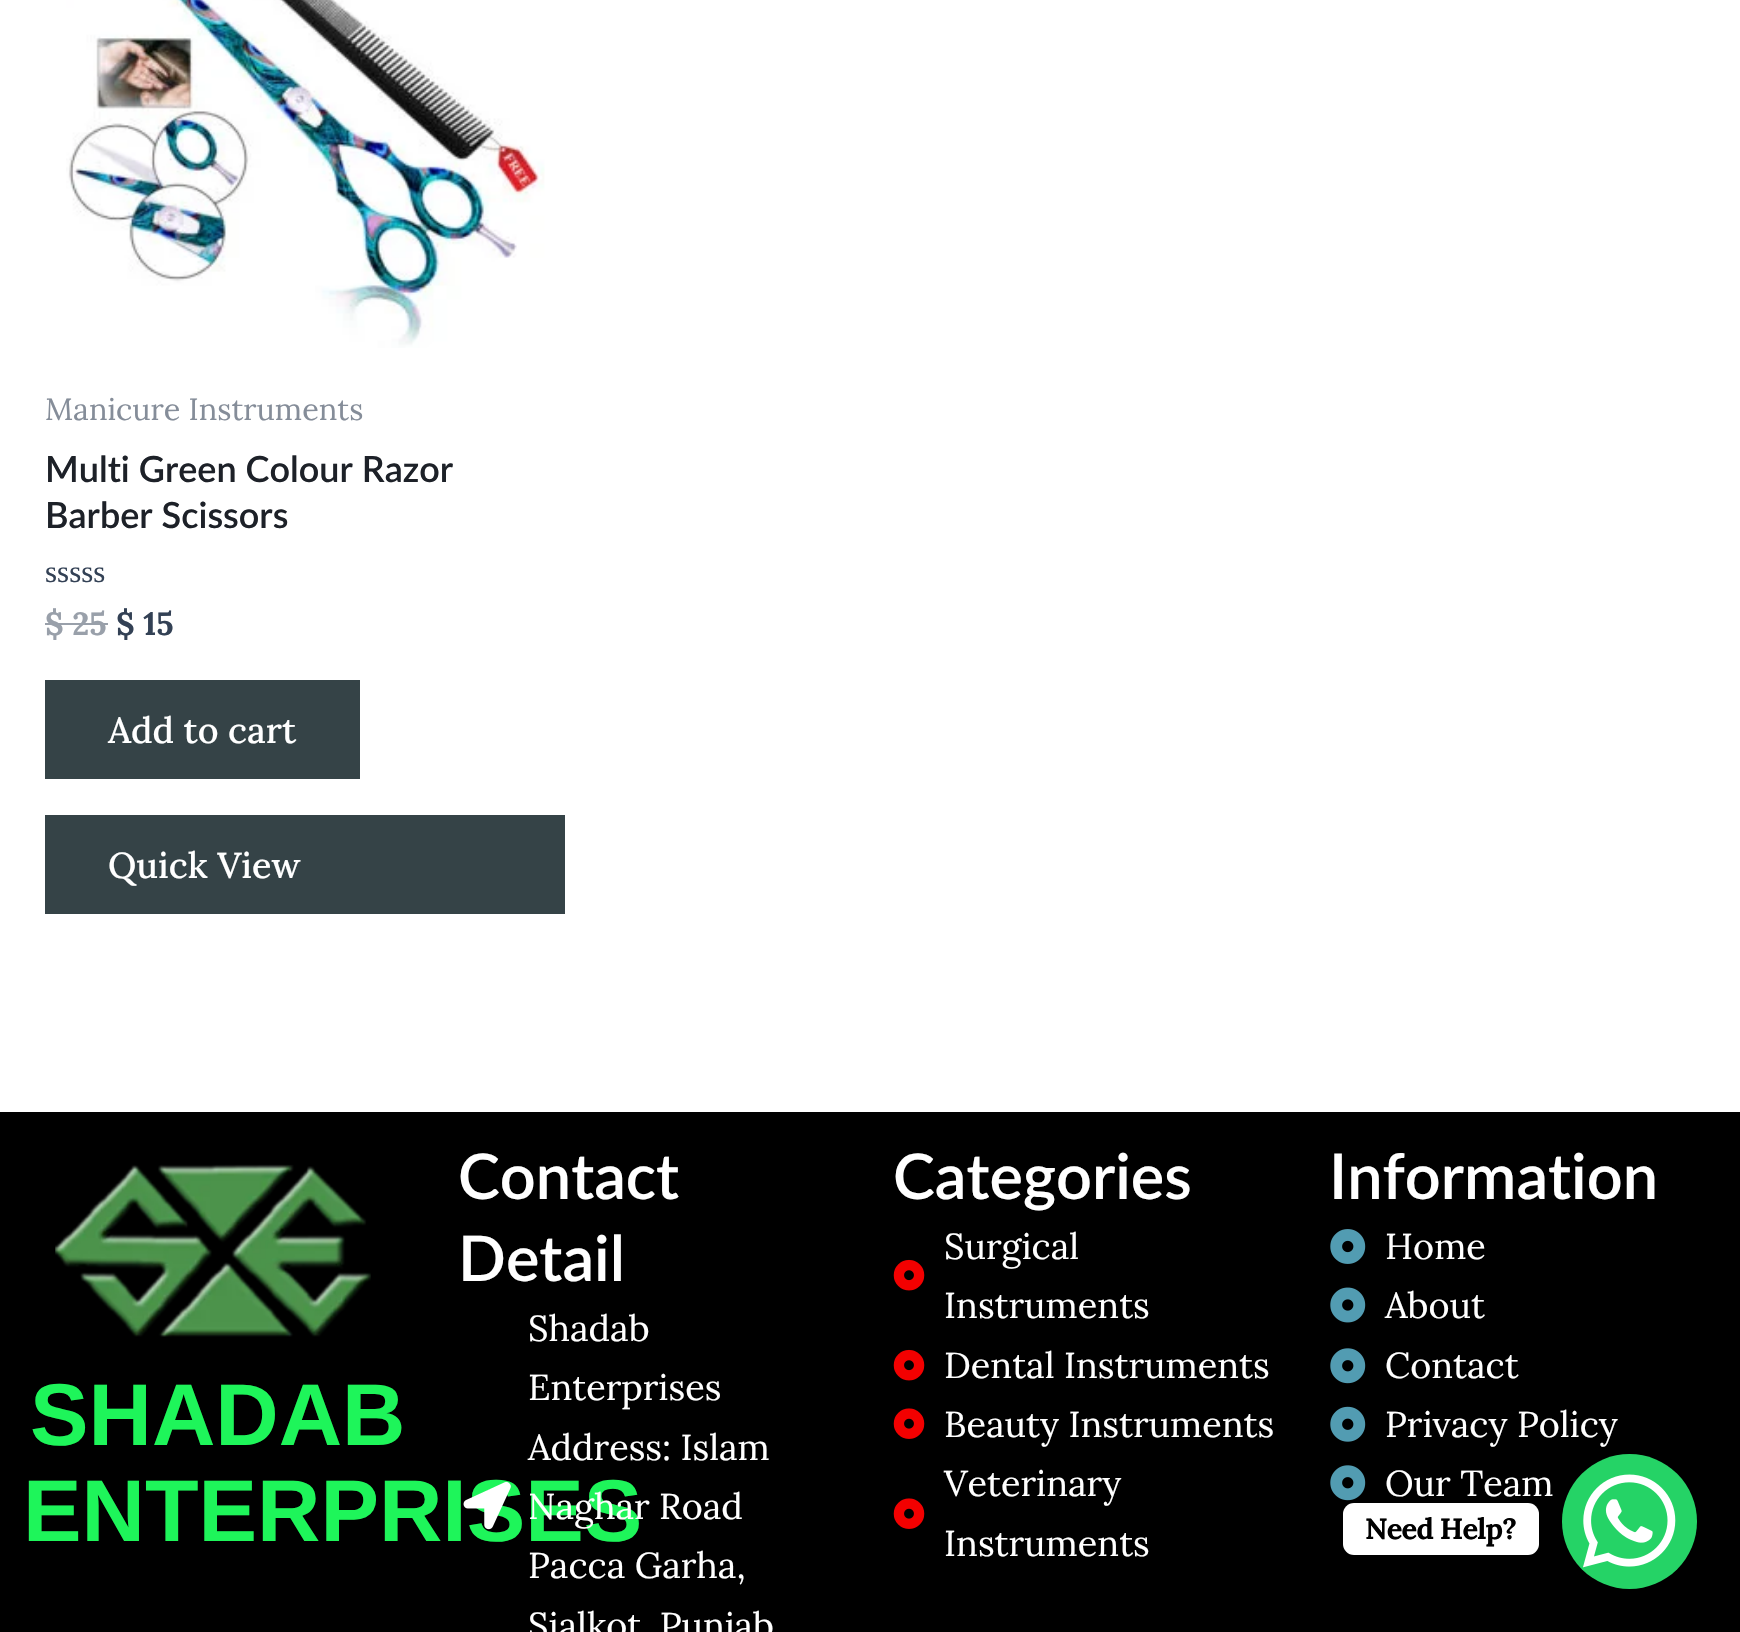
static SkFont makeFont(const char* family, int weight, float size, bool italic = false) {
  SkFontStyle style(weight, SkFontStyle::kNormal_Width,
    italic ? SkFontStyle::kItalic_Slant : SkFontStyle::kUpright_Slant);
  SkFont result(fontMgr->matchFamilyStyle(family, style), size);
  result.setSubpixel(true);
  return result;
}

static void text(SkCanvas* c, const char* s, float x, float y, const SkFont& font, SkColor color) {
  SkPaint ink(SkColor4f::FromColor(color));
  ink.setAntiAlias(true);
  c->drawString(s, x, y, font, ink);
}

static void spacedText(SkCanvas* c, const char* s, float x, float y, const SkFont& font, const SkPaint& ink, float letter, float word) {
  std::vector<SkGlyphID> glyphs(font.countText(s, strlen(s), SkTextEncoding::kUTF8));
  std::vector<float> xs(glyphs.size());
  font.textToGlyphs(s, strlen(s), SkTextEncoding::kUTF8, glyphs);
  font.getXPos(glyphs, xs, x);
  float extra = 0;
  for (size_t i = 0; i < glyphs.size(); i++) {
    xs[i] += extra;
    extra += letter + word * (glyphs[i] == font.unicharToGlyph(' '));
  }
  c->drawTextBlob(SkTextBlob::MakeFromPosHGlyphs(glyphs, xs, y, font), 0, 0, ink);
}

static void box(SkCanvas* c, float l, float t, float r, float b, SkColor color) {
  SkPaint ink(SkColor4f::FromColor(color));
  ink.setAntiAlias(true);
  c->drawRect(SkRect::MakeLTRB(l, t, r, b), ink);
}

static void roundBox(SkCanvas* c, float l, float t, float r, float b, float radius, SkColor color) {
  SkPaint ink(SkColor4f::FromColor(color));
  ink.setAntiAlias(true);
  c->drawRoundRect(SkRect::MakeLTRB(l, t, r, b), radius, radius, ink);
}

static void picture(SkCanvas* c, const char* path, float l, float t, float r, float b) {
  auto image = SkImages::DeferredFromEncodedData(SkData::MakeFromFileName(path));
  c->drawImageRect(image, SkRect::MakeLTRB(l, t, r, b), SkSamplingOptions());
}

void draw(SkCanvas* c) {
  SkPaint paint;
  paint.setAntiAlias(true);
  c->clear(0xffffffff);
  picture(c, "img_01.png", 66, 0, 545, 348);
  SkFont face1 = makeFont("Lora", 400, 30.6f);
  text(c, "Manicure Instruments", 45, 420, face1, 0xff858d99);
  SkFont face2 = makeFont("Lato", 600, 36);
  text(c, "Multi Green Colour Razor", 45, 482, face2, 0xff1d2128);
  text(c, "Barber Scissors", 45, 528, face2, 0xff1d2128);
  SkFont face3 = makeFont("Liberation Serif", 400, 31);
  text(c, "sssss", 45, 582, face3, 0xff334155);
  SkFont face4 = makeFont("Lora", 700, 32);
  text(c, "$ 25", 45, 635, face4, 0xff99a0aa);
  box(c, 45, 623, 108, 625, 0xff99a0aa);
  text(c, "$ 15", 116, 635, face4, 0xff334155);
  box(c, 45, 680, 360, 779, 0xff354347);
  SkFont face5 = makeFont("Lora", 500, 36);
  text(c, "Add to cart", 108, 743, face5, 0xffffffff);
  box(c, 45, 815, 565, 914, 0xff354347);
  text(c, "Quick View", 108, 878, face5, 0xffffffff);
  box(c, 0, 1112, 1740, 1632, 0xff000000);
  SkFont face6 = makeFont("Lato", 600, 63);
  text(c, "Contact", 458, 1199, face6, 0xffffffff);
  text(c, "Detail", 458, 1281, face6, 0xffffffff);
  SkFont face7 = makeFont("Liberation Sans", 700, 87.75f);
  text(c, "ENTERPRISES", 23, 1541, face7, 0xff1ef55a);
  picture(c, "img_02.png", 463, 1481, 511, 1530);
  SkFont face8 = makeFont("Lora", 400, 36);
  text(c, "Shadab", 528, 1341, face8, 0xffffffff);
  text(c, "Enterprises", 528, 1400, face8, 0xffffffff);
  text(c, "Address: Islam", 528, 1460, face8, 0xffffffff);
  text(c, "Naghar Road", 528, 1519, face8, 0xffffffff);
  text(c, "Pacca Garha,", 528, 1578, face8, 0xffffffff);
  text(c, "Sialkot, Punjab", 528, 1638, face8, 0xffffffff);
  text(c, "Categories", 893, 1199, face6, 0xffffffff);
  picture(c, "img_03.png", 893, 1259, 925, 1291);
  text(c, "Surgical", 944, 1259, face8, 0xffffffff);
  text(c, "Instruments", 944, 1318, face8, 0xffffffff);
  picture(c, "img_03.png", 893, 1349, 925, 1381);
  text(c, "Dental Instruments", 944, 1378, face8, 0xffffffff);
  picture(c, "img_04.png", 893, 1408, 925, 1439);
  text(c, "Beauty Instruments", 944, 1437, face8, 0xffffffff);
  picture(c, "img_04.png", 893, 1498, 925, 1529);
  text(c, "Veterinary", 944, 1496, face8, 0xffffffff);
  text(c, "Instruments", 944, 1556, face8, 0xffffffff);
  text(c, "Information", 1329, 1199, face6, 0xffffffff);
  picture(c, "img_05.png", 1330, 1229, 1366, 1264);
  text(c, "Home", 1385, 1259, face8, 0xffffffff);
  picture(c, "img_06.png", 1330, 1287, 1366, 1323);
  text(c, "About", 1385, 1318, face8, 0xffffffff);
  picture(c, "img_07.png", 1330, 1348, 1366, 1384);
  text(c, "Contact", 1385, 1378, face8, 0xffffffff);
  picture(c, "img_08.png", 1330, 1406, 1366, 1442);
  text(c, "Privacy Policy", 1385, 1437, face8, 0xffffffff);
  picture(c, "img_07.png", 1330, 1465, 1366, 1501);
  text(c, "Our Team", 1385, 1496, face8, 0xffffffff);
  picture(c, "img_09.png", 55, 1164, 371, 1337);
  text(c, "SHADAB", 30, 1445, face7, 0xff1ef55a);
  roundBox(c, 1343, 1503, 1539, 1555, 11, 0xffffffff);
  SkFont face9 = makeFont("Lora", 700, 29.25f);
  paint.setColor(0xff000000);
  spacedText(c, "Need Help?", 1365, 1539, face9, paint, -0.9f, 0);
  paint.setColor(0xff25d366);
  c->drawCircle(1629.5f, 1521.5f, 67.5f, paint);
  picture(c, "img_10.png", 1583, 1474, 1676, 1568);
}
